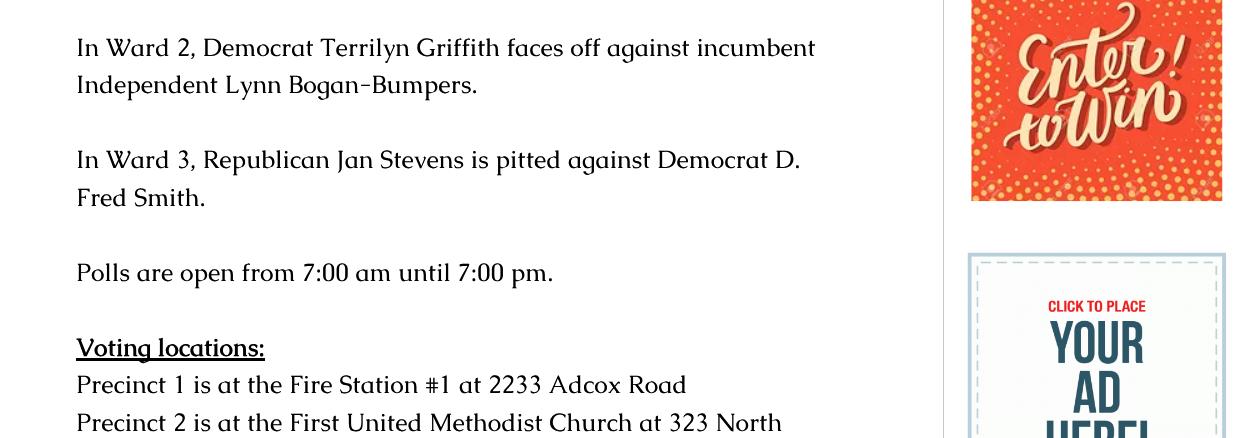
static SkFont makeFont(const char* family, int weight, float size, bool italic = false) {
  SkFontStyle style(weight, SkFontStyle::kNormal_Width,
    italic ? SkFontStyle::kItalic_Slant : SkFontStyle::kUpright_Slant);
  SkFont result(fontMgr->matchFamilyStyle(family, style), size);
  result.setSubpixel(true);
  return result;
}

static void text(SkCanvas* c, const char* s, float x, float y, const SkFont& font, SkColor color) {
  SkPaint ink(SkColor4f::FromColor(color));
  ink.setAntiAlias(true);
  c->drawString(s, x, y, font, ink);
}

static void box(SkCanvas* c, float l, float t, float r, float b, SkColor color) {
  SkPaint ink(SkColor4f::FromColor(color));
  ink.setAntiAlias(true);
  c->drawRect(SkRect::MakeLTRB(l, t, r, b), ink);
}

static void picture(SkCanvas* c, const char* path, float l, float t, float r, float b) {
  auto image = SkImages::DeferredFromEncodedData(SkData::MakeFromFileName(path));
  c->drawImageRect(image, SkRect::MakeLTRB(l, t, r, b), SkSamplingOptions());
}

void draw(SkCanvas* c) {
  SkPaint paint;
  paint.setAntiAlias(true);
  c->clear(0xffffffff);
  SkFont face1 = makeFont("Caudex", 400, 25);
  text(c, "In Ward 2, Democrat Terrilyn Griffith faces off against incumbent", 76, 56, face1, 0xff000000);
  text(c, "Independent Lynn Bogan-Bumpers.", 76, 93, face1, 0xff000000);
  text(c, "In Ward 3, Republican Jan Stevens is pitted against Democrat D.", 76, 168, face1, 0xff000000);
  text(c, "Fred Smith.", 76, 206, face1, 0xff000000);
  text(c, "Polls are open from 7:00 am until 7:00 pm.", 76, 281, face1, 0xff000000);
  box(c, 76, 358, 265, 361, 0xff000000);
  SkFont face2 = makeFont("Caudex", 700, 25);
  text(c, "Voting locations:", 76, 356, face2, 0xff000000);
  text(c, "Precinct 1 is at the Fire Station #1 at 2233 Adcox Road", 76, 393, face1, 0xff000000);
  text(c, "Precinct 2 is at the First United Methodist Church at 323 North", 76, 431, face1, 0xff000000);
  box(c, 943, 0, 944, 438, 0xffc7c7c7);
  picture(c, "img_01.png", 971, 0, 1223, 202);
  picture(c, "img_02.png", 967, 252, 1227, 438);
}
